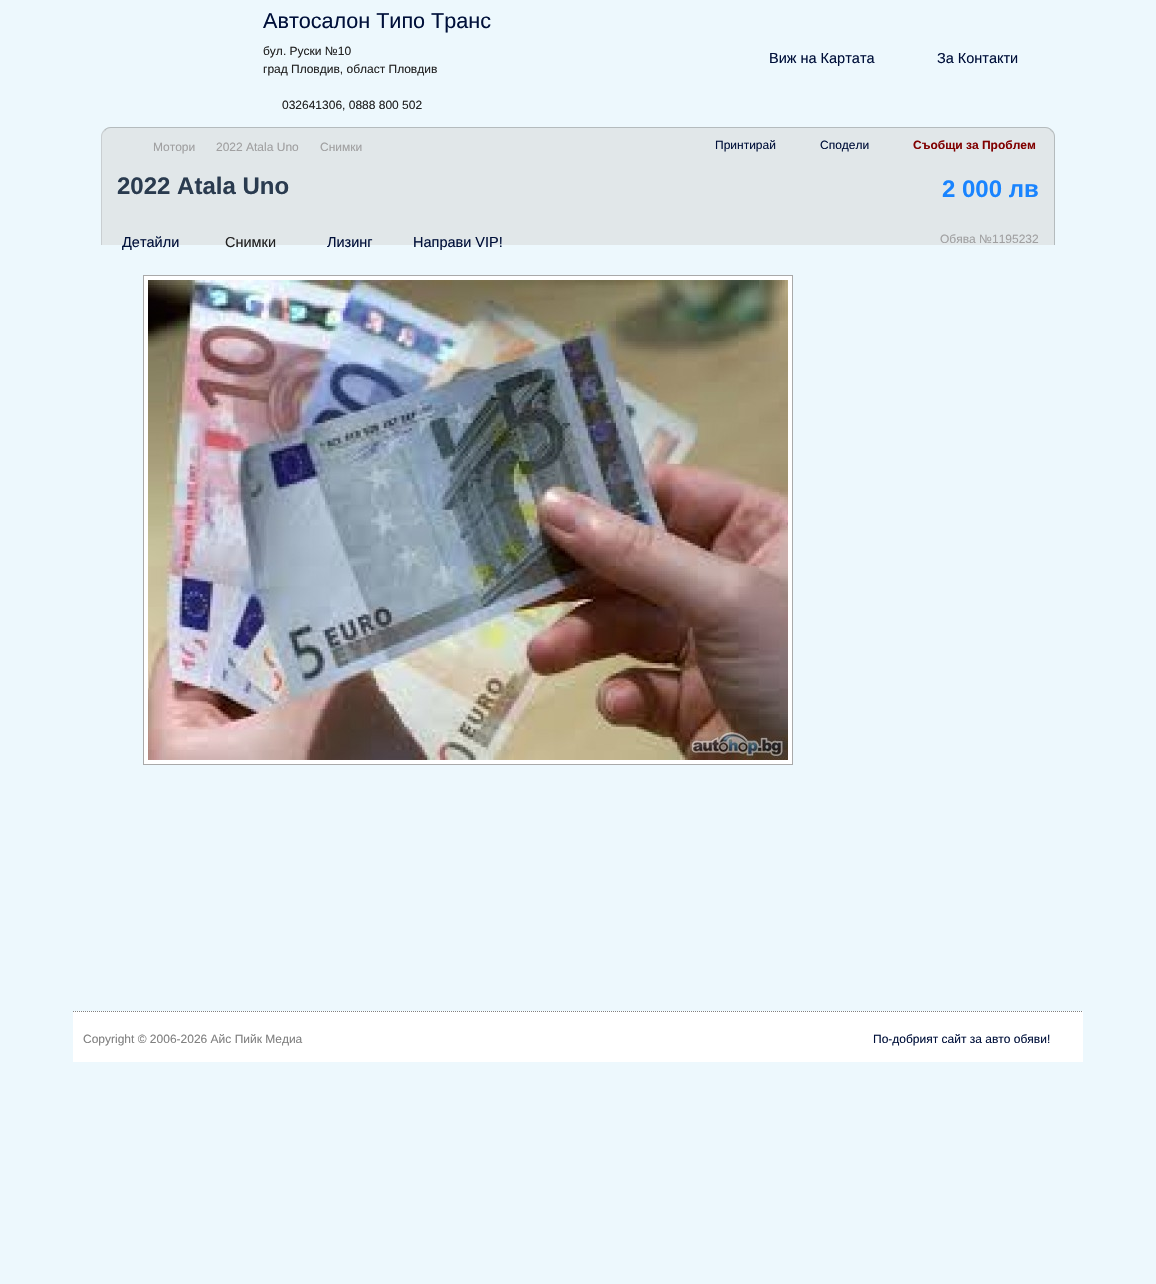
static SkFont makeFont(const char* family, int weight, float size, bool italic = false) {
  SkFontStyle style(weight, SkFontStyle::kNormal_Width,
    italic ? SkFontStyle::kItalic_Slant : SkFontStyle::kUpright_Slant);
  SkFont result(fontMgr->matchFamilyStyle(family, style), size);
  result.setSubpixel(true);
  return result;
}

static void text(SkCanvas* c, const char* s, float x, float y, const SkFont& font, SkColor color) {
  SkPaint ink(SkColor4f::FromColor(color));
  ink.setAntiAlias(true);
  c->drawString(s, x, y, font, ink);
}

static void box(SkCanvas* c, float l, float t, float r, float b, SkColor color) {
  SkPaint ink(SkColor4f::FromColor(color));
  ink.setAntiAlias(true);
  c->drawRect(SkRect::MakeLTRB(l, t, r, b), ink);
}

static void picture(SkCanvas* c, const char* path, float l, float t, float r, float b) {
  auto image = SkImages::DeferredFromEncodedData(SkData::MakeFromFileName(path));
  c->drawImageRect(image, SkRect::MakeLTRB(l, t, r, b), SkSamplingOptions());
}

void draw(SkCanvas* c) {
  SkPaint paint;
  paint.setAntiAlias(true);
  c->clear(0xffedf8fd);
  SkFont face1 = makeFont("Liberation Sans", 400, 21.6f);
  text(c, "Автосалон Типо Транс", 263, 28, face1, 0xff00103a);
  SkFont face2 = makeFont("Liberation Sans", 400, 12);
  text(c, "бул. Руски №10", 263, 55, face2, 0xff222222);
  SkFont face3 = makeFont("Liberation Sans", 400, 14.5f);
  text(c, "Виж на Картата", 769, 63, face3, 0xff00103a);
  text(c, "За Контакти", 937, 63, face3, 0xff00103a);
  text(c, "град Пловдив, област Пловдив", 263, 73, face2, 0xff222222);
  text(c, "032641306, 0888 800 502", 282, 109, face2, 0xff222222);
  paint.setColor(0xffe1e7e9);
  c->drawPath(SkPathBuilder().moveTo(111, 127).lineTo(1045, 127).cubicTo(1050.5f, 127, 1055, 131.5f, 1055, 137).lineTo(1055, 245).lineTo(101, 245).lineTo(101, 137).cubicTo(101, 131.5f, 105.5f, 127, 111, 127).close().detach(), paint);
  paint.setColor(0xffb4bbbd);
  c->drawPath(SkPathBuilder().moveTo(111, 127).cubicTo(108, 127, 106, 128, 104, 130).lineTo(105, 131).cubicTo(106, 129, 108, 128, 111, 128).lineTo(1045, 128).cubicTo(1048, 128, 1050, 129, 1051, 131).lineTo(1052, 130).cubicTo(1050, 128, 1048, 127, 1045, 127).close().detach(), paint);
  c->drawPath(SkPathBuilder().moveTo(1054, 245).lineTo(1055, 245).lineTo(1055, 137).cubicTo(1055, 134, 1054, 132, 1052, 130).lineTo(1051, 131).cubicTo(1053, 132, 1054, 134, 1054, 137).close().detach(), paint);
  paint.setColor(0xffc9ced1);
  c->drawPath(SkPathBuilder().moveTo(101, 245).lineTo(102, 245).lineTo(102, 137).cubicTo(102, 134, 103, 132, 105, 131).lineTo(104, 130).cubicTo(102, 132, 101, 134, 101, 137).close().detach(), paint);
  text(c, "Мотори", 153, 151, face2, 0xffa0a0a1);
  text(c, "2022 Atala Uno", 216, 151, face2, 0xffa0a0a1);
  text(c, "Снимки", 320, 151, face2, 0xffa0a0a1);
  text(c, "Принтирай", 715, 149, face2, 0xff00103a);
  text(c, "Сподели", 820, 149, face2, 0xff00103a);
  SkFont face4 = makeFont("Liberation Sans", 700, 12);
  text(c, "Съобщи за Проблем", 913, 149, face4, 0xff800000);
  SkFont face5 = makeFont("Liberation Sans", 700, 24);
  text(c, "2022 Atala Uno", 117, 194, face5, 0xff2a3b4f);
  text(c, "2 000 лв", 942, 197, face5, 0xff1984ff);
  text(c, "Детайли", 122, 247, face3, 0xff00103a);
  text(c, "Снимки", 225, 247, face3, 0xff222222);
  text(c, "Лизинг", 327, 247, face3, 0xff00103a);
  text(c, "Направи VIP!", 413, 247, face3, 0xff00103a);
  text(c, "Обява №1195232", 940, 243, face2, 0xffa0a0a1);
  paint.setColor(0xffffffff);
  c->drawRect(SkRect::MakeLTRB(143.5f, 275.5f, 792.5f, 764.5f), paint);
  paint.setStyle(SkPaint::kStroke_Style);
  paint.setStrokeWidth(1);
  paint.setColor(0xffa9a9a9);
  c->drawRect(SkRect::MakeLTRB(143.5f, 275.5f, 792.5f, 764.5f), paint);
  picture(c, "img_01.png", 148, 280, 788, 760);
  box(c, 73, 1011, 1083, 1062, 0xffffffff);
  paint.setColor(0xff808080);
  paint.setPathEffect(SkDashPathEffect::Make({{1, 1}}, 0));
  c->drawPath(SkPathBuilder().moveTo(73, 1011.5f).lineTo(1083, 1011.5f).detach(), paint);
  paint.setPathEffect(nullptr);
  text(c, "Copyright © 2006-2026 Айс Пийк Медиа", 83, 1043, face2, 0xff808080);
  text(c, "По-добрият сайт за авто обяви!", 873, 1043, face2, 0xff00103a);
}
